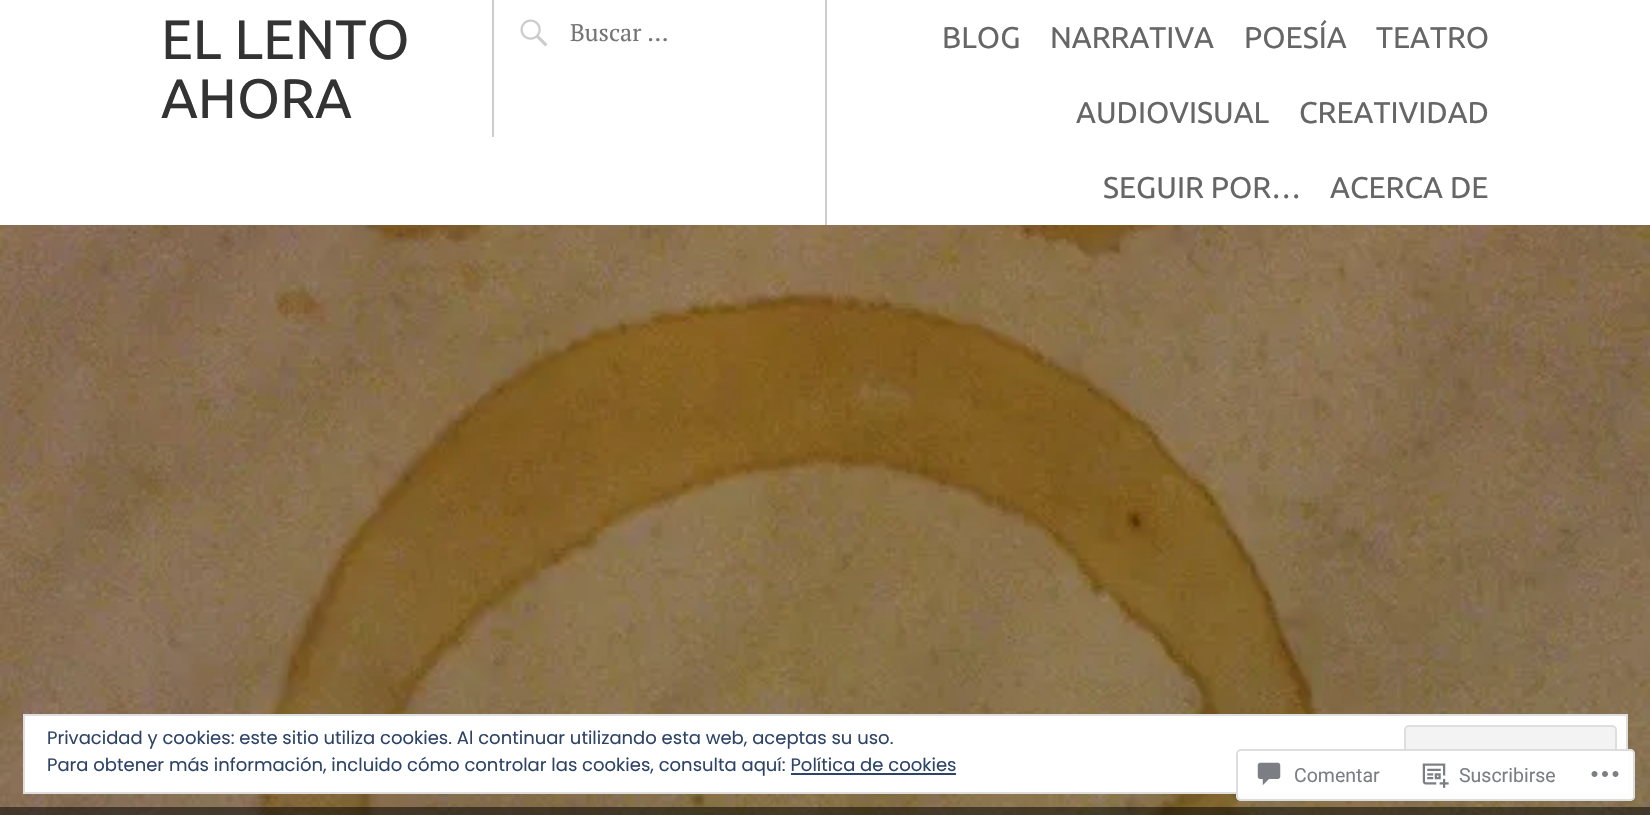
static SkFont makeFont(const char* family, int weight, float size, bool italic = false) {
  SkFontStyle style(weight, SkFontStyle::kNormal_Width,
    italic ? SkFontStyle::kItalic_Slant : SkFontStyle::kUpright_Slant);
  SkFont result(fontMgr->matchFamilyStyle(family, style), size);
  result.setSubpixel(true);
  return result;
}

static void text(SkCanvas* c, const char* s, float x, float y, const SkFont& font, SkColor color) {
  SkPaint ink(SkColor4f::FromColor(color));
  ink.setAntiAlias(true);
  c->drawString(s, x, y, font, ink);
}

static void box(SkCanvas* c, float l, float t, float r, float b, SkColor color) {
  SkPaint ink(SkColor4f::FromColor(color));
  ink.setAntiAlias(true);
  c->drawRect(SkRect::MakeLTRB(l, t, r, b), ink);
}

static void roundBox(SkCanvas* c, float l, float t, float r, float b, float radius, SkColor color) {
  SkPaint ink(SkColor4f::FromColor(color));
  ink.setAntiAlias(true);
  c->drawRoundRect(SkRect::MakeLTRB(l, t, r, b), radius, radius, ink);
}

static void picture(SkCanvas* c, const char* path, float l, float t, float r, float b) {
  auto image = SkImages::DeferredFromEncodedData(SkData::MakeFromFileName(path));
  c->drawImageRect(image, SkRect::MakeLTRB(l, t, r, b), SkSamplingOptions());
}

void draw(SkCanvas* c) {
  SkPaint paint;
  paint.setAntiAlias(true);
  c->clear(0xffffffff);
  box(c, 492, 0, 494, 137, 0xffcccccc);
  SkFont face1 = makeFont("Ubuntu", 400, 55.5f);
  text(c, "EL LENTO", 161, 59, face1, 0xff333333);
  text(c, "AHORA", 161, 118, face1, 0xff333333);
  picture(c, "img_01.png", 520, 19, 548, 47);
  SkFont face2 = makeFont("PT Serif", 400, 24);
  text(c, "Buscar …", 570, 41, face2, 0xff757575);
  box(c, 825, 0, 827, 225, 0xffcccccc);
  SkFont face3 = makeFont("Ubuntu", 400, 30);
  text(c, "BLOG", 942, 48, face3, 0xff666666);
  text(c, "NARRATIVA", 1050, 48, face3, 0xff666666);
  text(c, "POESÍA", 1244, 48, face3, 0xff666666);
  text(c, "TEATRO", 1376, 48, face3, 0xff666666);
  text(c, "AUDIOVISUAL", 1076, 123, face3, 0xff666666);
  text(c, "CREATIVIDAD", 1299, 123, face3, 0xff666666);
  text(c, "SEGUIR POR…", 1103, 198, face3, 0xff666666);
  text(c, "ACERCA DE", 1330, 198, face3, 0xff666666);
  picture(c, "img_02.png", 0, 225, 1650, 815);
  box(c, 0, 807, 1650, 815, 0x80000000);
  paint.setColor(0xffffffff);
  c->drawRect(SkRect::MakeLTRB(24, 715, 1627, 793), paint);
  paint.setStyle(SkPaint::kStroke_Style);
  paint.setStrokeWidth(2);
  paint.setColor(0xffdedede);
  c->drawRect(SkRect::MakeLTRB(24, 715, 1627, 793), paint);
  SkFont face4 = makeFont("Poppins", 400, 18);
  text(c, "Privacidad y cookies: este sitio utiliza cookies. Al continuar utilizando esta web, aceptas su uso.", 47, 744, face4, 0xff2e4467);
  paint.setStyle(SkPaint::kFill_Style);
  paint.setColor(0xfff3f3f3);
  c->drawRoundRect(SkRect::MakeLTRB(1405, 726, 1616, 782), 4, 4, paint);
  paint.setStyle(SkPaint::kStroke_Style);
  paint.setColor(0xffdedede);
  c->drawRoundRect(SkRect::MakeLTRB(1405, 726, 1616, 782), 4, 4, paint);
  text(c, "Para obtener más información, incluido cómo controlar las cookies, consulta aquí: Política de cookies", 47, 771, face4, 0xff2e4467);
  box(c, 791, 773, 956, 775, 0xff2e4467);
  roundBox(c, 1236, 749, 1635, 801, 5, 0xfaffffff);
  paint.setColor(0xfadcdcde);
  c->drawRoundRect(SkRect::MakeLTRB(1237, 750, 1634, 800), 4, 4, paint);
  picture(c, "img_03.png", 1257, 762, 1281, 786);
  SkFont face5 = makeFont("Roboto", 400, 19.5f);
  text(c, "Comentar", 1294, 782, face5, 0xff7b7f85);
  picture(c, "img_04.png", 1422, 763, 1449, 788);
  text(c, "Suscribirse", 1459, 782, face5, 0xff7b7f85);
  picture(c, "img_05.png", 1591, 771, 1619, 777);
}
